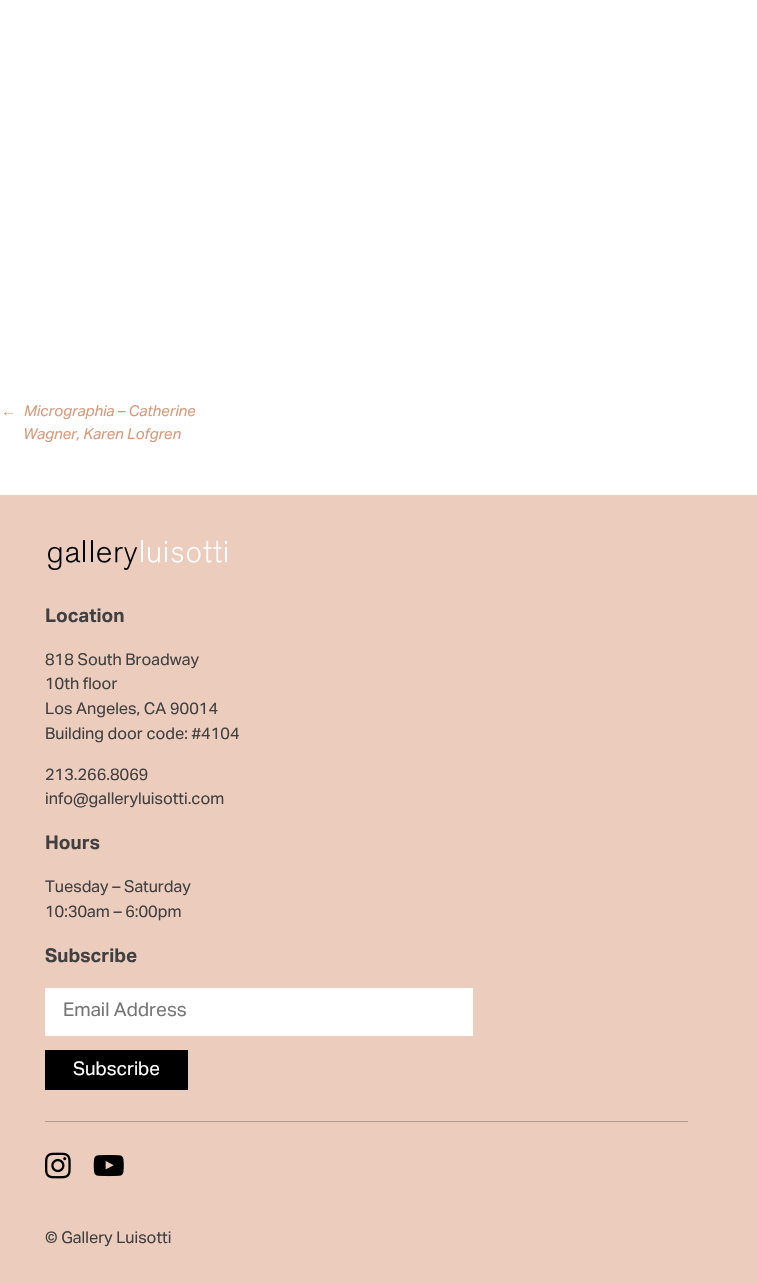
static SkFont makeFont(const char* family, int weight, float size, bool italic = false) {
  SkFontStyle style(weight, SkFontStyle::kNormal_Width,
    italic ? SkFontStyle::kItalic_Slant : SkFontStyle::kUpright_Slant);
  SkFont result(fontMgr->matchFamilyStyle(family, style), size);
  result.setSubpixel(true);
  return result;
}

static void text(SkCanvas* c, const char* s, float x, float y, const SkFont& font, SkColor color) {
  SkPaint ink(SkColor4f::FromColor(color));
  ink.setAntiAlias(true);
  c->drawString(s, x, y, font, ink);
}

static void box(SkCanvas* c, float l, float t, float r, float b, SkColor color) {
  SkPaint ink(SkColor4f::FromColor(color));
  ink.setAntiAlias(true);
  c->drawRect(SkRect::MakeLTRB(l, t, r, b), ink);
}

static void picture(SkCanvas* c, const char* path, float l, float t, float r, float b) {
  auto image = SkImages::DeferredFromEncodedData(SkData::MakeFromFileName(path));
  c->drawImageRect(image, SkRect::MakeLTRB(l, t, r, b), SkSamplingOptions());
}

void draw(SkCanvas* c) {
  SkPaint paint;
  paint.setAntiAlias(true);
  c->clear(0xffffffff);
  SkFont face1 = makeFont("Liberation Sans", 400, 15, true);
  text(c, "←", 1, 416, face1, 0xffda997b);
  SkFont face2 = makeFont("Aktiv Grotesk", 400, 15, true);
  text(c, "Micrographia – Catherine", 24, 416, face2, 0xffda997b);
  text(c, "Wagner, Karen Lofgren", 23, 439, face2, 0xffda997b);
  box(c, 0, 495, 757, 1284, 0xffecccbd);
  picture(c, "img_01.png", 48, 540, 227, 570);
  SkFont face3 = makeFont("Aktiv Grotesk", 700, 19);
  text(c, "Location", 45, 622, face3, 0xff404040);
  SkFont face4 = makeFont("Aktiv Grotesk", 400, 16.25f);
  text(c, "818 South Broadway", 45, 665, face4, 0xff404040);
  text(c, "10th floor", 45, 689, face4, 0xff404040);
  text(c, "Los Angeles, CA 90014", 45, 714, face4, 0xff404040);
  text(c, "Building door code: #4104", 45, 739, face4, 0xff404040);
  text(c, "213.266.8069", 45, 780, face4, 0xff404040);
  text(c, "info@galleryluisotti.com", 45, 804, face4, 0xff404040);
  text(c, "Hours", 45, 849, face3, 0xff404040);
  text(c, "Tuesday – Saturday", 45, 892, face4, 0xff404040);
  text(c, "10:30am – 6:00pm", 45, 917, face4, 0xff404040);
  text(c, "Subscribe", 45, 962, face3, 0xff404040);
  box(c, 45, 988, 473, 1036, 0xffffffff);
  SkFont face5 = makeFont("Aktiv Grotesk", 400, 19);
  text(c, "Email Address", 63, 1016, face5, 0xff757575);
  box(c, 45, 1050, 188, 1090, 0xff000000);
  SkFont face6 = makeFont("Aktiv Grotesk", 400, 18.75f);
  text(c, "Subscribe", 73, 1075, face6, 0xffffffff);
  box(c, 45, 1121, 688, 1122, 0xffb29c93);
  picture(c, "img_02.png", 45, 1152, 71, 1179);
  picture(c, "img_03.png", 93, 1155, 124, 1177);
  text(c, "© Gallery Luisotti", 45, 1243, face4, 0xff404040);
}
